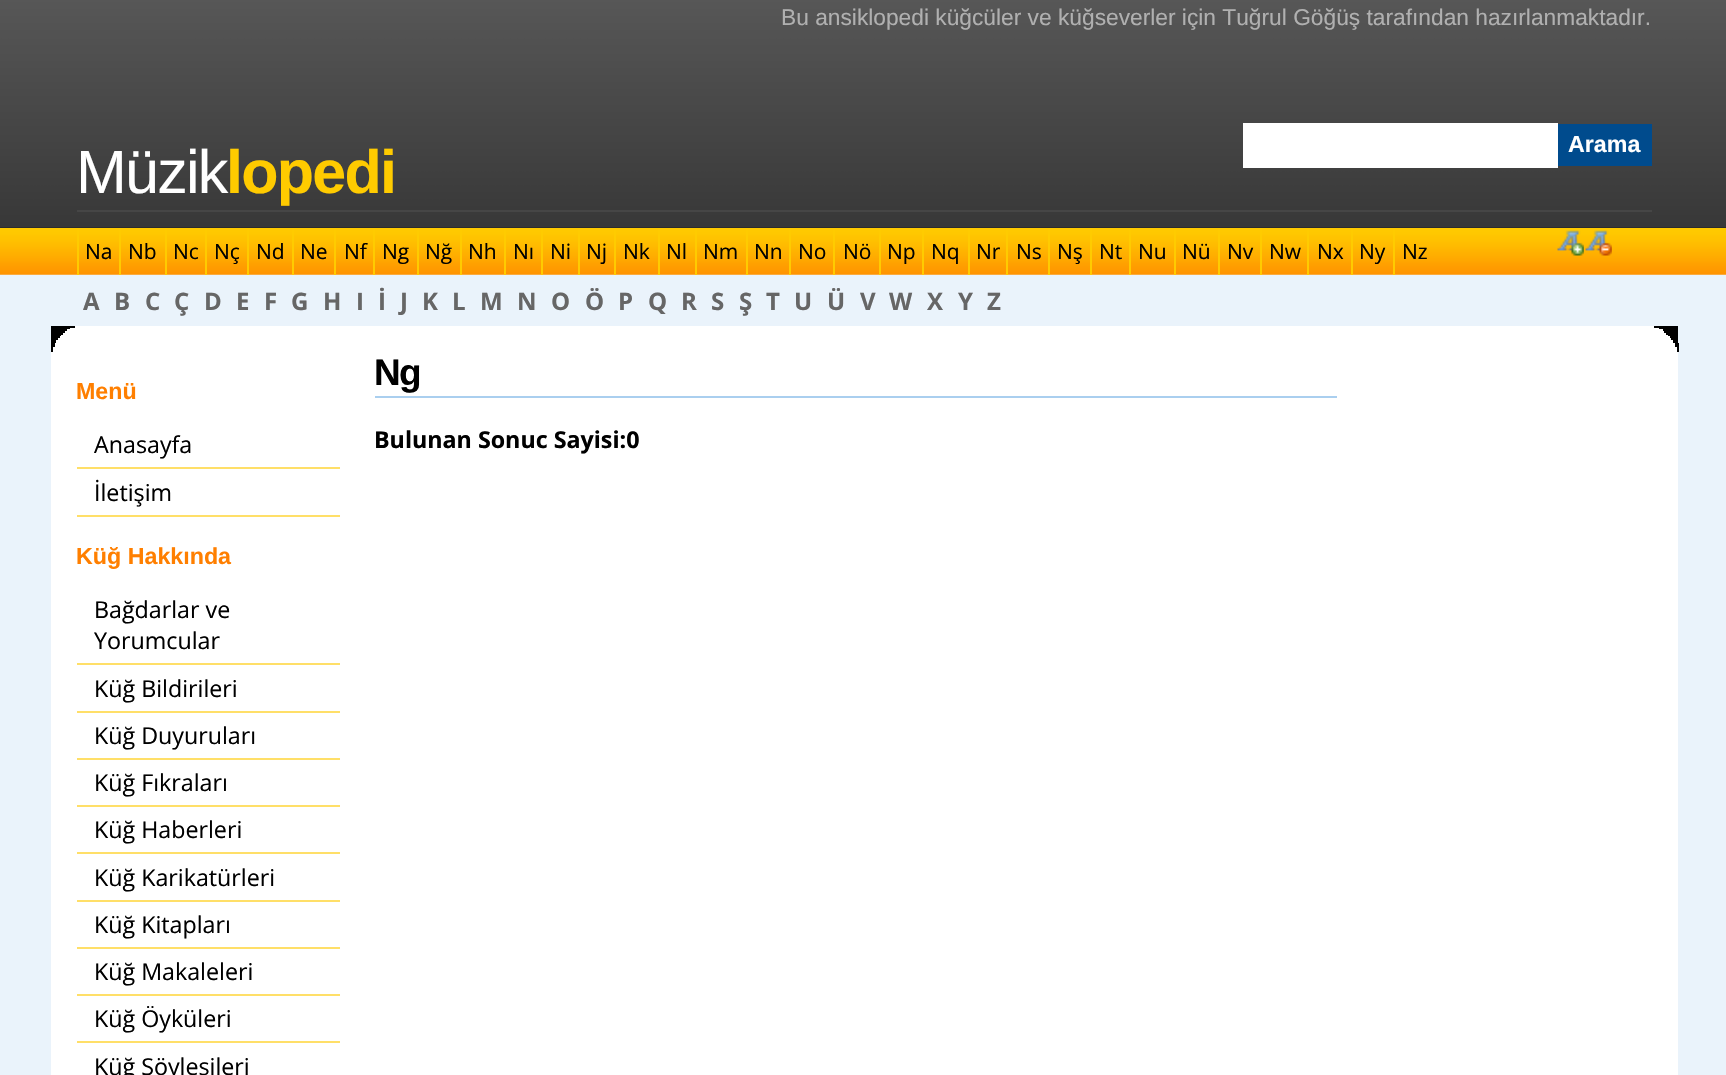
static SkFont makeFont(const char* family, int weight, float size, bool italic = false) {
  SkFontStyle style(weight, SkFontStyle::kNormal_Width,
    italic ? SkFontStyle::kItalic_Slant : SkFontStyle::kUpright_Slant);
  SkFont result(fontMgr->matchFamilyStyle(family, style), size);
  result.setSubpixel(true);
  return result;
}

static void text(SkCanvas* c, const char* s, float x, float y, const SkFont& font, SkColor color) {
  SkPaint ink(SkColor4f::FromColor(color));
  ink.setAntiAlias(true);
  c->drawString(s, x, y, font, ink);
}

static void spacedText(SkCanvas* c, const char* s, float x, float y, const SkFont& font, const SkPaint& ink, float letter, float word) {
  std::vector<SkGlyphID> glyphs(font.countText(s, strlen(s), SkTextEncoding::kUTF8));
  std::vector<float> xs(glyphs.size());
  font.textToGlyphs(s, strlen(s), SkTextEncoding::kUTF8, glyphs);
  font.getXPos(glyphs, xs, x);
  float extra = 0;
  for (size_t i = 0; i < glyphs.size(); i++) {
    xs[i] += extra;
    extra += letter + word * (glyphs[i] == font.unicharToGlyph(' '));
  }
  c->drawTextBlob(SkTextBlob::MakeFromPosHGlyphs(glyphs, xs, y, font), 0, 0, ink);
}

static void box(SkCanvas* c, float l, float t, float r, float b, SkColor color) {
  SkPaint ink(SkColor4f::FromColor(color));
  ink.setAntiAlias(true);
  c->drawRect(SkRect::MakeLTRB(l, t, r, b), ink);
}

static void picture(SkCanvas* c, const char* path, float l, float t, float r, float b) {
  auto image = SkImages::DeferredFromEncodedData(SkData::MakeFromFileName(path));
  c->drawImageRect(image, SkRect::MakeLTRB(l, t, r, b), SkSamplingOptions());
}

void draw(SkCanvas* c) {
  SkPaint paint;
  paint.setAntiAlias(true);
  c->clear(0xffeaf3fb);
  box(c, 0, 227, 1726, 228, 0xff1f1f1f);
  picture(c, "img_01.png", 0, 0, 1726, 228);
  SkFont face1 = makeFont("Liberation Sans", 400, 22.75f);
  text(c, "Bu ansiklopedi küğcüler ve küğseverler için Tuğrul Göğüş tarafından hazırlanmaktadır.", 781, 25, face1, 0xffb0b0b0);
  box(c, 1243, 123, 1558, 168, 0xffffffff);
  box(c, 1558, 124, 1652, 166, 0xff004b8d);
  SkFont face2 = makeFont("Liberation Sans", 700, 23.25f);
  text(c, "Arama", 1568, 152, face2, 0xffffffff);
  box(c, 77, 210, 1652, 212, 0xff464646);
  SkFont face3 = makeFont("Liberation Sans", 400, 61);
  paint.setColor(0xffffffff);
  spacedText(c, "Müzik", 76, 193, face3, paint, -1.75f, 0);
  SkFont face4 = makeFont("Liberation Sans", 700, 61);
  paint.setColor(0xffffcb00);
  spacedText(c, "lopedi", 226, 193, face4, paint, -1.75f, 0);
  picture(c, "img_02.png", 0, 228, 1726, 275);
  box(c, 77, 228, 79, 275, 0xffffcb00);
  SkFont face5 = makeFont("Open Sans", 400, 21);
  text(c, "Na", 85, 259, face5, 0xff000000);
  box(c, 119, 228, 121, 275, 0xffffcb00);
  text(c, "Nb", 128, 259, face5, 0xff000000);
  box(c, 165, 228, 167, 275, 0xffffcb00);
  text(c, "Nc", 173, 259, face5, 0xff000000);
  box(c, 205, 228, 207, 275, 0xffffcb00);
  text(c, "Nç", 214, 259, face5, 0xff000000);
  box(c, 247, 228, 249, 275, 0xffffcb00);
  text(c, "Nd", 256, 259, face5, 0xff000000);
  box(c, 292, 228, 294, 275, 0xffffcb00);
  text(c, "Ne", 300, 259, face5, 0xff000000);
  box(c, 334, 228, 336, 275, 0xffffcb00);
  text(c, "Nf", 344, 259, face5, 0xff000000);
  box(c, 373, 228, 375, 275, 0xffffcb00);
  text(c, "Ng", 382, 259, face5, 0xff000000);
  box(c, 417, 228, 419, 275, 0xffffcb00);
  text(c, "Nğ", 425, 259, face5, 0xff000000);
  box(c, 460, 228, 462, 275, 0xffffcb00);
  text(c, "Nh", 468, 259, face5, 0xff000000);
  box(c, 504, 228, 506, 275, 0xffffcb00);
  text(c, "Nı", 513, 259, face5, 0xff000000);
  box(c, 541, 228, 543, 275, 0xffffcb00);
  text(c, "Ni", 550, 259, face5, 0xff000000);
  box(c, 578, 228, 580, 275, 0xffffcb00);
  text(c, "Nj", 586, 259, face5, 0xff000000);
  box(c, 614, 228, 616, 275, 0xffffcb00);
  text(c, "Nk", 623, 259, face5, 0xff000000);
  box(c, 658, 228, 660, 275, 0xffffcb00);
  text(c, "Nl", 666, 259, face5, 0xff000000);
  box(c, 695, 228, 697, 275, 0xffffcb00);
  text(c, "Nm", 703, 259, face5, 0xff000000);
  box(c, 746, 228, 748, 275, 0xffffcb00);
  text(c, "Nn", 754, 259, face5, 0xff000000);
  box(c, 789, 228, 791, 275, 0xffffcb00);
  text(c, "No", 798, 259, face5, 0xff000000);
  box(c, 833, 228, 835, 275, 0xffffcb00);
  text(c, "Nö", 843, 259, face5, 0xff000000);
  box(c, 879, 228, 881, 275, 0xffffcb00);
  text(c, "Np", 887, 259, face5, 0xff000000);
  box(c, 922, 228, 924, 275, 0xffffcb00);
  text(c, "Nq", 931, 259, face5, 0xff000000);
  box(c, 968, 228, 970, 275, 0xffffcb00);
  text(c, "Nr", 976, 259, face5, 0xff000000);
  box(c, 1006, 228, 1008, 275, 0xffffcb00);
  text(c, "Ns", 1016, 259, face5, 0xff000000);
  box(c, 1048, 228, 1050, 275, 0xffffcb00);
  text(c, "Nş", 1057, 259, face5, 0xff000000);
  box(c, 1090, 228, 1092, 275, 0xffffcb00);
  text(c, "Nt", 1099, 259, face5, 0xff000000);
  box(c, 1129, 228, 1131, 275, 0xffffcb00);
  text(c, "Nu", 1138, 259, face5, 0xff000000);
  box(c, 1174, 228, 1176, 275, 0xffffcb00);
  text(c, "Nü", 1182, 259, face5, 0xff000000);
  box(c, 1218, 228, 1220, 275, 0xffffcb00);
  text(c, "Nv", 1227, 259, face5, 0xff000000);
  box(c, 1260, 228, 1262, 275, 0xffffcb00);
  text(c, "Nw", 1269, 259, face5, 0xff000000);
  box(c, 1307, 228, 1309, 275, 0xffffcb00);
  text(c, "Nx", 1317, 259, face5, 0xff000000);
  box(c, 1351, 228, 1353, 275, 0xffffcb00);
  text(c, "Ny", 1359, 259, face5, 0xff000000);
  box(c, 1393, 228, 1395, 275, 0xffffcb00);
  text(c, "Nz", 1402, 259, face5, 0xff000000);
  picture(c, "img_03.png", 1557, 230, 1584, 256);
  picture(c, "img_04.png", 1585, 230, 1612, 256);
  SkFont face6 = makeFont("Open Sans", 700, 24);
  text(c, "A", 83, 310, face6, 0xff666666);
  text(c, "B", 114, 310, face6, 0xff666666);
  text(c, "C", 145, 310, face6, 0xff666666);
  text(c, "Ç", 174, 310, face6, 0xff666666);
  text(c, "D", 204, 310, face6, 0xff666666);
  text(c, "E", 236, 310, face6, 0xff666666);
  text(c, "F", 264, 310, face6, 0xff666666);
  text(c, "G", 291, 310, face6, 0xff666666);
  text(c, "H", 323, 310, face6, 0xff666666);
  text(c, "I", 356, 310, face6, 0xff666666);
  text(c, "İ", 378, 310, face6, 0xff666666);
  text(c, "J", 400, 310, face6, 0xff666666);
  text(c, "K", 422, 310, face6, 0xff666666);
  text(c, "L", 452, 310, face6, 0xff666666);
  text(c, "M", 480, 310, face6, 0xff666666);
  text(c, "N", 517, 310, face6, 0xff666666);
  text(c, "O", 551, 310, face6, 0xff666666);
  text(c, "Ö", 585, 310, face6, 0xff666666);
  text(c, "P", 618, 310, face6, 0xff666666);
  text(c, "Q", 648, 310, face6, 0xff666666);
  text(c, "R", 681, 310, face6, 0xff666666);
  text(c, "S", 711, 310, face6, 0xff666666);
  text(c, "Ş", 739, 310, face6, 0xff666666);
  text(c, "T", 766, 310, face6, 0xff666666);
  text(c, "U", 794, 310, face6, 0xff666666);
  text(c, "Ü", 827, 310, face6, 0xff666666);
  text(c, "V", 860, 310, face6, 0xff666666);
  text(c, "W", 889, 310, face6, 0xff666666);
  text(c, "X", 927, 310, face6, 0xff666666);
  text(c, "Y", 958, 310, face6, 0xff666666);
  text(c, "Z", 987, 310, face6, 0xff666666);
  box(c, 51, 326, 1678, 1075, 0xffffffff);
  box(c, 1654, 326, 1678, 328, 0xff000000);
  box(c, 51, 326, 75, 328, 0xff000000);
  box(c, 1659, 328, 1678, 329, 0xff000000);
  box(c, 51, 328, 70, 329, 0xff000000);
  box(c, 1663, 329, 1678, 331, 0xff000000);
  box(c, 51, 329, 67, 331, 0xff000000);
  box(c, 1664, 331, 1678, 333, 0xff000000);
  box(c, 51, 331, 65, 333, 0xff000000);
  box(c, 1666, 333, 1678, 335, 0xff000000);
  box(c, 51, 333, 63, 335, 0xff000000);
  box(c, 1668, 335, 1678, 336, 0xff000000);
  box(c, 51, 335, 61, 336, 0xff000000);
  box(c, 1670, 336, 1678, 338, 0xff000000);
  box(c, 51, 336, 60, 338, 0xff000000);
  box(c, 1671, 338, 1678, 340, 0xff000000);
  box(c, 51, 338, 58, 340, 0xff000000);
  box(c, 1673, 340, 1678, 343, 0xff000000);
  box(c, 51, 340, 56, 343, 0xff000000);
  box(c, 1675, 343, 1679, 347, 0xff000000);
  box(c, 51, 343, 55, 347, 0xff000000);
  box(c, 1677, 347, 1679, 352, 0xff000000);
  box(c, 51, 347, 53, 352, 0xff000000);
  text(c, "Menü", 76, 399, face2, 0xffff7f00);
  box(c, 77, 467, 340, 469, 0xffffdf68);
  SkFont face7 = makeFont("Open Sans", 400, 23.25f);
  text(c, "Anasayfa", 94, 453, face7, 0xff000000);
  box(c, 77, 515, 340, 517, 0xffffdf68);
  text(c, "İletişim", 94, 501, face7, 0xff000000);
  text(c, "Küğ Hakkında", 76, 564, face2, 0xffff7f00);
  box(c, 77, 663, 340, 665, 0xffffdf68);
  text(c, "Bağdarlar ve", 94, 618, face7, 0xff000000);
  text(c, "Yorumcular", 94, 649, face7, 0xff000000);
  box(c, 77, 711, 340, 713, 0xffffdf68);
  text(c, "Küğ Bildirileri", 94, 697, face7, 0xff000000);
  box(c, 77, 758, 340, 760, 0xffffdf68);
  text(c, "Küğ Duyuruları", 94, 744, face7, 0xff000000);
  box(c, 77, 805, 340, 807, 0xffffdf68);
  text(c, "Küğ Fıkraları", 94, 791, face7, 0xff000000);
  box(c, 77, 852, 340, 854, 0xffffdf68);
  text(c, "Küğ Haberleri", 94, 838, face7, 0xff000000);
  box(c, 77, 900, 340, 902, 0xffffdf68);
  text(c, "Küğ Karikatürleri", 94, 886, face7, 0xff000000);
  box(c, 77, 947, 340, 949, 0xffffdf68);
  text(c, "Küğ Kitapları", 94, 933, face7, 0xff000000);
  box(c, 77, 994, 340, 996, 0xffffdf68);
  text(c, "Küğ Makaleleri", 94, 980, face7, 0xff000000);
  box(c, 77, 1041, 340, 1043, 0xffffdf68);
  text(c, "Küğ Öyküleri", 94, 1027, face7, 0xff000000);
  text(c, "Küğ Söyleşileri", 94, 1075, face7, 0xff000000);
  box(c, 375, 396, 1337, 398, 0xffaacfef);
  SkFont face8 = makeFont("Liberation Sans", 700, 37);
  paint.setColor(0xff000000);
  spacedText(c, "Ng", 374, 385, face8, paint, -1.75f, 0);
  SkFont face9 = makeFont("Open Sans", 700, 23.25f);
  text(c, "Bulunan Sonuc Sayisi:0", 374, 448, face9, 0xff000000);
}
